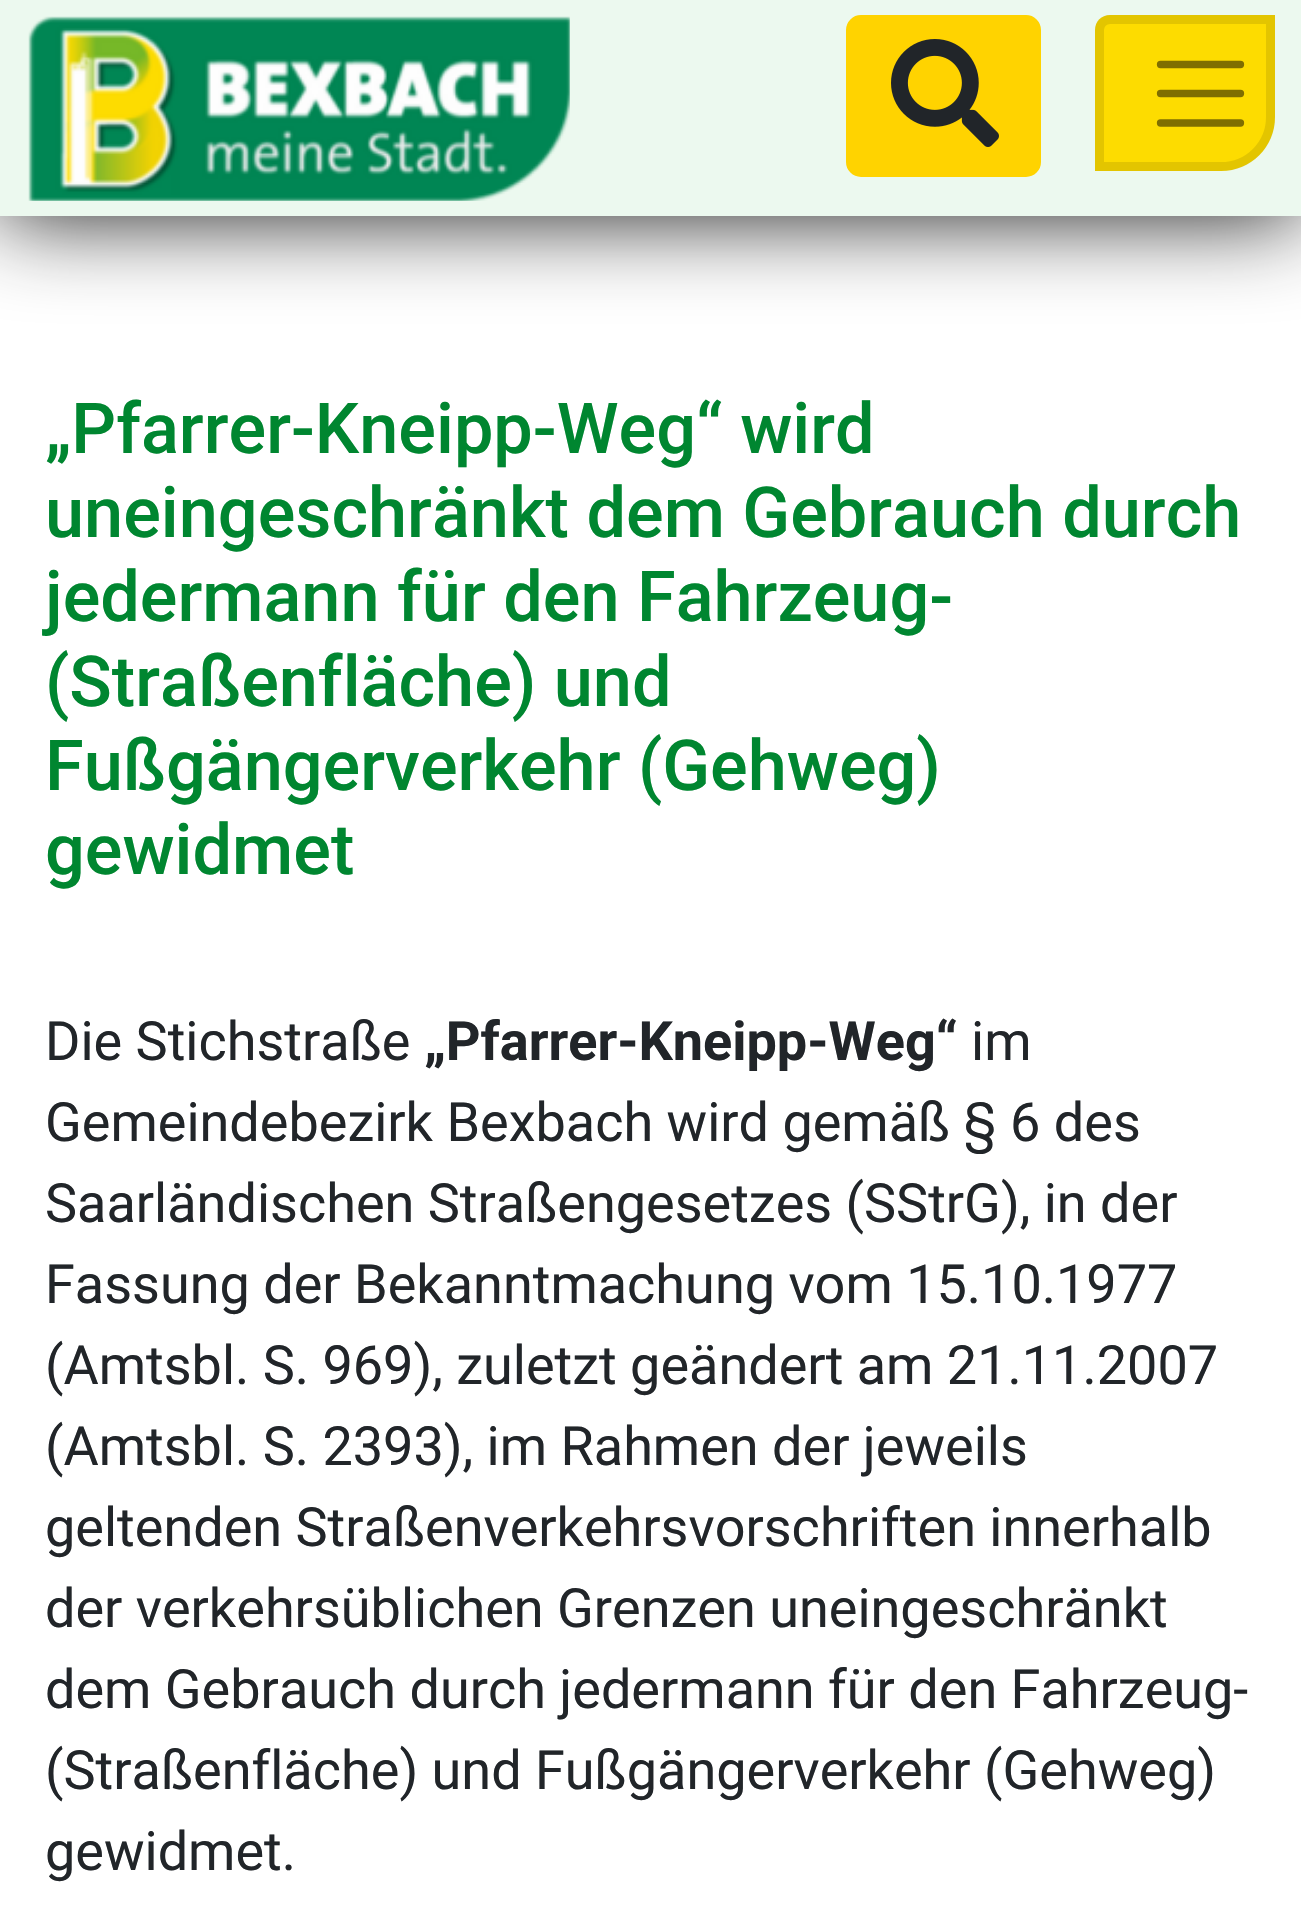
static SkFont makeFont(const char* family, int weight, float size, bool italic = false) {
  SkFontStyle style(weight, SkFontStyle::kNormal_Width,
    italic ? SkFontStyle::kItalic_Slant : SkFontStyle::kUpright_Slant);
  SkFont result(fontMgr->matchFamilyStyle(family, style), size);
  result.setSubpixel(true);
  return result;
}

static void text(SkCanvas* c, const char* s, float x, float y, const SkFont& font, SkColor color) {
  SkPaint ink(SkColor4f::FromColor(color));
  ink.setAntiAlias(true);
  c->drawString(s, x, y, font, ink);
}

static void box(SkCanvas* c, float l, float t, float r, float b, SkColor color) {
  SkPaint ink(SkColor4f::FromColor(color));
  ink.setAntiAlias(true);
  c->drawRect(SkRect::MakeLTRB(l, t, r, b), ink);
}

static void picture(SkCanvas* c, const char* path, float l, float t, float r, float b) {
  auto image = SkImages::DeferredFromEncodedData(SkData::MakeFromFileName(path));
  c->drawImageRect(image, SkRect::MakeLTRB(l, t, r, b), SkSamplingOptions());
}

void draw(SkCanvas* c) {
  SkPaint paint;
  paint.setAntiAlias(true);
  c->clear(0xffffffff);
  paint.setColor(0xe6000000);
  paint.setMaskFilter(SkMaskFilter::MakeBlur(kNormal_SkBlurStyle, 45));
  c->drawRect(SkRect::MakeLTRB(0, 0, 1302, 216), paint);
  paint.setMaskFilter(nullptr);
  box(c, 0, 0, 1301, 216, 0xffecf9ef);
  picture(c, "img_01.png", 28, 16, 570, 201);
  paint.setColor(0xffffd300);
  c->drawRoundRect(SkRect::MakeLTRB(847.5f, 16.5f, 1039.5f, 175.5f), 13.5f, 13.5f, paint);
  paint.setStyle(SkPaint::kStroke_Style);
  paint.setStrokeWidth(3);
  c->drawRoundRect(SkRect::MakeLTRB(847.5f, 16.5f, 1039.5f, 175.5f), 13.5f, 13.5f, paint);
  picture(c, "img_02.png", 891, 39, 999, 147);
  paint.setStyle(SkPaint::kFill_Style);
  paint.setColor(0xfffddc00);
  c->drawPath(SkPathBuilder().moveTo(1110, 15).lineTo(1275, 15).lineTo(1275, 117).cubicTo(1275, 147, 1251, 171, 1221, 171).lineTo(1095, 171).lineTo(1095, 30).cubicTo(1095, 21.5f, 1101.5f, 15, 1110, 15).close().detach(), paint);
  paint.setStyle(SkPaint::kStroke_Style);
  paint.setStrokeWidth(9);
  paint.setColor(0x1a000000);
  c->drawPath(SkPathBuilder().moveTo(1110, 19.5f).lineTo(1270.5f, 19.5f).lineTo(1270.5f, 117).cubicTo(1270.5f, 144.5f, 1248.5f, 166.5f, 1221, 166.5f).lineTo(1099.5f, 166.5f).lineTo(1099.5f, 30).cubicTo(1099.5f, 24, 1104, 19.5f, 1110, 19.5f).close().detach(), paint);
  paint.setStrokeWidth(7.3f);
  paint.setStrokeCap(SkPaint::kRound_Cap);
  paint.setColor(0xff7f6e00);
  c->drawPath(SkPathBuilder().moveTo(1160.5f, 64.5f).lineTo(1240.5f, 64.5f).moveTo(1160.5f, 93.5f).lineTo(1240.5f, 93.5f).moveTo(1160.5f, 123).lineTo(1240.5f, 123).detach(), paint);
  SkFont face1 = makeFont("Roboto", 500, 70.25f);
  text(c, "„Pfarrer-Kneipp-Weg“ wird", 45, 453, face1, 0xff008630);
  text(c, "uneingeschränkt dem Gebrauch durch", 45, 537, face1, 0xff008630);
  text(c, "jedermann für den Fahrzeug-", 45, 621, face1, 0xff008630);
  text(c, "(Straßenfläche) und", 45, 706, face1, 0xff008630);
  text(c, "Fußgängerverkehr (Gehweg)", 45, 790, face1, 0xff008630);
  text(c, "gewidmet", 45, 874, face1, 0xff008630);
  SkFont face2 = makeFont("Roboto", 400, 54);
  text(c, "Die Stichstraße", 45, 1060, face2, 0xff212529);
  SkFont face3 = makeFont("Roboto", 700, 54);
  text(c, "„Pfarrer-Kneipp-Weg“", 424, 1060, face3, 0xff212529);
  text(c, "im", 971, 1060, face2, 0xff212529);
  text(c, "Gemeindebezirk Bexbach wird gemäß § 6 des", 45, 1141, face2, 0xff212529);
  text(c, "Saarländischen Straßengesetzes (SStrG), in der", 45, 1222, face2, 0xff212529);
  text(c, "Fassung der Bekanntmachung vom 15.10.1977", 45, 1303, face2, 0xff212529);
  text(c, "(Amtsbl. S. 969), zuletzt geändert am 21.11.2007", 45, 1384, face2, 0xff212529);
  text(c, "(Amtsbl. S. 2393), im Rahmen der jeweils", 45, 1465, face2, 0xff212529);
  text(c, "geltenden Straßenverkehrsvorschriften innerhalb", 45, 1546, face2, 0xff212529);
  text(c, "der verkehrsüblichen Grenzen uneingeschränkt", 45, 1627, face2, 0xff212529);
  text(c, "dem Gebrauch durch jedermann für den Fahrzeug-", 45, 1708, face2, 0xff212529);
  text(c, "(Straßenfläche) und Fußgängerverkehr (Gehweg)", 45, 1789, face2, 0xff212529);
  text(c, "gewidmet.", 45, 1870, face2, 0xff212529);
}
